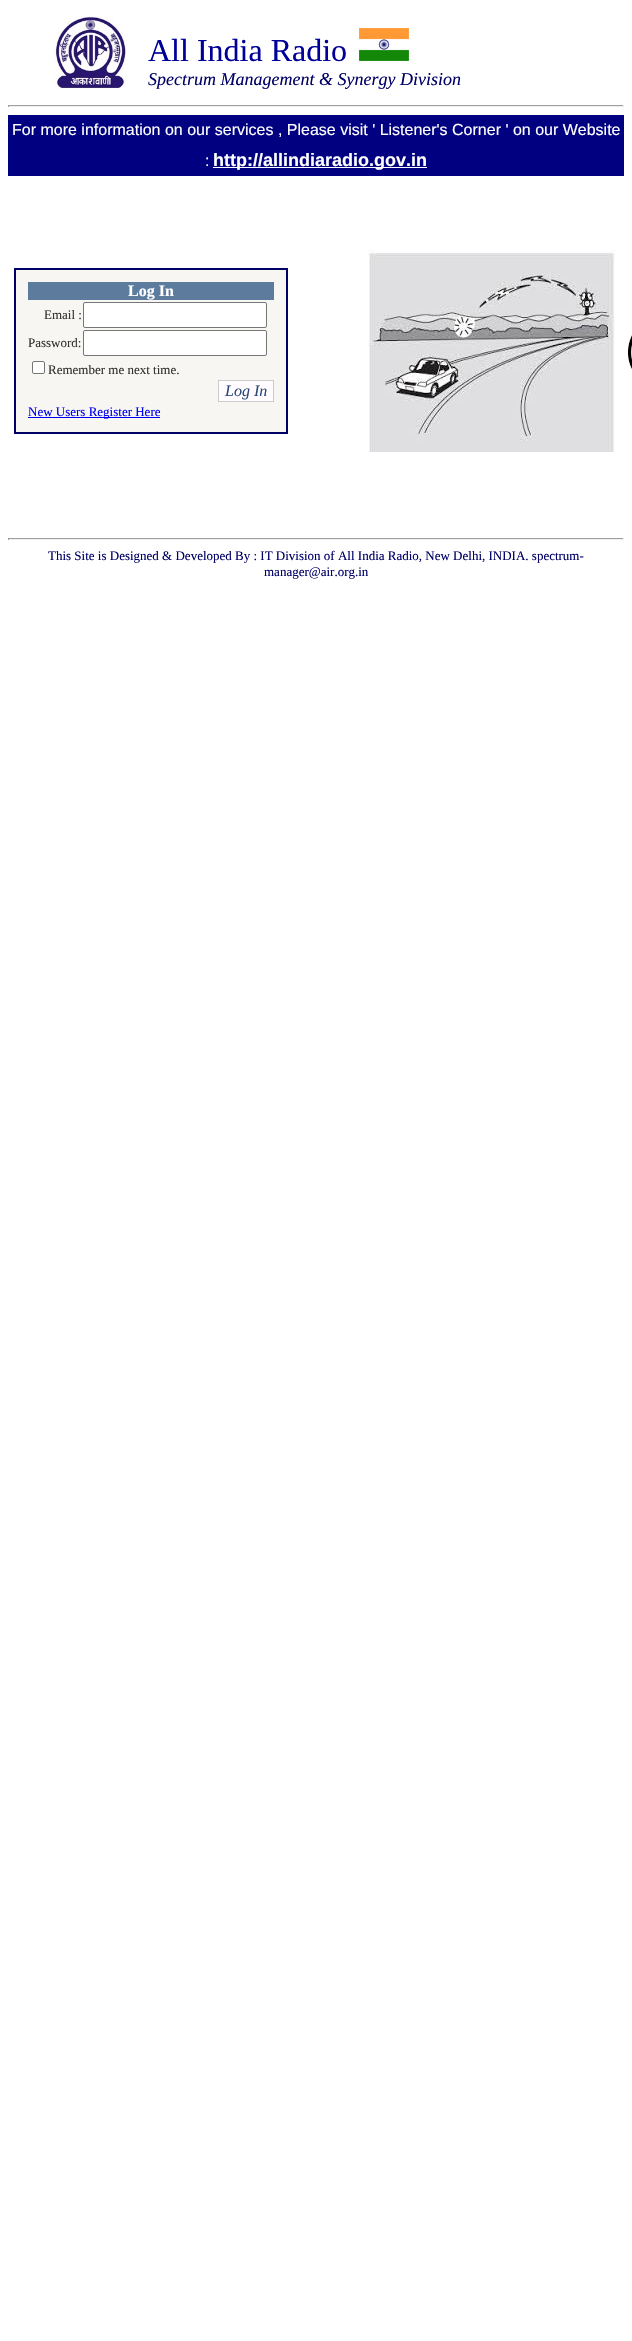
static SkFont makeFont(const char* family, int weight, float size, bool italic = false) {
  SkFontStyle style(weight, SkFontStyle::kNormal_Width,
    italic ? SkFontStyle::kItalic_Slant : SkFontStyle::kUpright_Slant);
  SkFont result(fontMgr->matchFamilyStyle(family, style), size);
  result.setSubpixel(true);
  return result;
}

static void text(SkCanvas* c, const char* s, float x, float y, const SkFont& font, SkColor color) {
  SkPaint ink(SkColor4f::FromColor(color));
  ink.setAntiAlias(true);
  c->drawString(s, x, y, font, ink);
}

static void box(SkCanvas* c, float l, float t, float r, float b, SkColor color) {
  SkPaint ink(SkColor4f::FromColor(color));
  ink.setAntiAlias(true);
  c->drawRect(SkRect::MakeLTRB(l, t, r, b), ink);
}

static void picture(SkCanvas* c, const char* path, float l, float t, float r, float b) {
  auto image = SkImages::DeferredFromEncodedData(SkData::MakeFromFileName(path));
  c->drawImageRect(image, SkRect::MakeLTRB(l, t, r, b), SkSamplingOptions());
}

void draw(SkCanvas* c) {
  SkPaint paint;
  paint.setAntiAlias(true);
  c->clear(0xffffffff);
  picture(c, "img_01.png", 53, 15, 128, 90);
  SkFont face1 = makeFont("Liberation Serif", 400, 32);
  text(c, "All India Radio", 148, 61, face1, 0xff000099);
  picture(c, "img_02.png", 359, 28, 409, 61);
  SkFont face2 = makeFont("Liberation Serif", 400, 18, true);
  text(c, "Spectrum Management & Synergy Division", 148, 85, face2, 0xff000066);
  box(c, 8, 105, 624, 106, 0xff9f9f9f);
  box(c, 623, 105, 624, 107, 0xffeeeeee);
  box(c, 8, 106, 624, 107, 0xffeeeeee);
  box(c, 8, 105, 9, 107, 0xff9f9f9f);
  box(c, 8, 115, 624, 176, 0xff000080);
  SkFont face3 = makeFont("Liberation Sans", 400, 16);
  text(c, "For more information on our services , Please visit ' Listener's Corner ' on our Website", 12, 135, face3, 0xffffffff);
  text(c, ":", 205, 166, face3, 0xffffffff);
  box(c, 213, 167, 427, 168, 0xffffffff);
  SkFont face4 = makeFont("Liberation Sans", 700, 18);
  text(c, "http://allindiaradio.gov.in", 213, 166, face4, 0xffffffff);
  box(c, 16, 270, 286, 432, 0xfff7f6f3);
  box(c, 14, 268, 288, 270, 0xff000066);
  box(c, 286, 268, 288, 434, 0xff000066);
  box(c, 14, 432, 288, 434, 0xff000066);
  box(c, 14, 268, 16, 434, 0xff000066);
  box(c, 28, 282, 274, 300, 0xff5d7b9d);
  SkFont face5 = makeFont("Liberation Serif", 700, 16);
  text(c, "Log In", 128, 296, face5, 0xffffffff);
  SkFont face6 = makeFont("Liberation Serif", 400, 13);
  text(c, "Email :", 44, 319, face6, 0xff333333);
  paint.setColor(0xffffffff);
  c->drawRoundRect(SkRect::MakeLTRB(83.5f, 302.5f, 266.5f, 327.5f), 1.5f, 1.5f, paint);
  paint.setStyle(SkPaint::kStroke_Style);
  paint.setStrokeWidth(1);
  paint.setColor(0xff767676);
  c->drawRoundRect(SkRect::MakeLTRB(83.5f, 302.5f, 266.5f, 327.5f), 1.5f, 1.5f, paint);
  text(c, "Password:", 28, 347, face6, 0xff333333);
  paint.setStyle(SkPaint::kFill_Style);
  paint.setColor(0xffffffff);
  c->drawRoundRect(SkRect::MakeLTRB(83.5f, 330.5f, 266.5f, 355.5f), 1.5f, 1.5f, paint);
  paint.setStyle(SkPaint::kStroke_Style);
  paint.setColor(0xff767676);
  c->drawRoundRect(SkRect::MakeLTRB(83.5f, 330.5f, 266.5f, 355.5f), 1.5f, 1.5f, paint);
  paint.setStyle(SkPaint::kFill_Style);
  paint.setColor(0xffffffff);
  c->drawRoundRect(SkRect::MakeLTRB(32.5f, 361.5f, 44.5f, 373.5f), 1.5f, 1.5f, paint);
  paint.setStyle(SkPaint::kStroke_Style);
  paint.setColor(0xff767676);
  c->drawRoundRect(SkRect::MakeLTRB(32.5f, 361.5f, 44.5f, 373.5f), 1.5f, 1.5f, paint);
  text(c, "Remember me next time.", 48, 374, face6, 0xff333333);
  paint.setStyle(SkPaint::kFill_Style);
  paint.setColor(0xfffffbff);
  c->drawRect(SkRect::MakeLTRB(218.5f, 380.5f, 273.5f, 401.5f), paint);
  paint.setStyle(SkPaint::kStroke_Style);
  paint.setColor(0xffcccccc);
  c->drawRect(SkRect::MakeLTRB(218.5f, 380.5f, 273.5f, 401.5f), paint);
  SkFont face7 = makeFont("Liberation Serif", 400, 16, true);
  text(c, "Log In", 225, 396, face7, 0xff284775);
  box(c, 28, 417, 160, 418, 0xff0000ee);
  text(c, "New Users Register Here", 28, 416, face6, 0xff0000ee);
  picture(c, "img_03.png", 368, 250, 616, 452);
  picture(c, "img_04.png", 627, 335, 632, 369);
  box(c, 8, 538, 624, 539, 0xff9f9f9f);
  box(c, 623, 538, 624, 540, 0xffeeeeee);
  box(c, 8, 539, 624, 540, 0xffeeeeee);
  box(c, 8, 538, 9, 540, 0xff9f9f9f);
  text(c, "This Site is Designed & Developed By : IT Division of All India Radio, New Delhi, INDIA. spectrum-", 48, 560, face6, 0xff000066);
  text(c, "manager@air.org.in", 264, 576, face6, 0xff000066);
}
